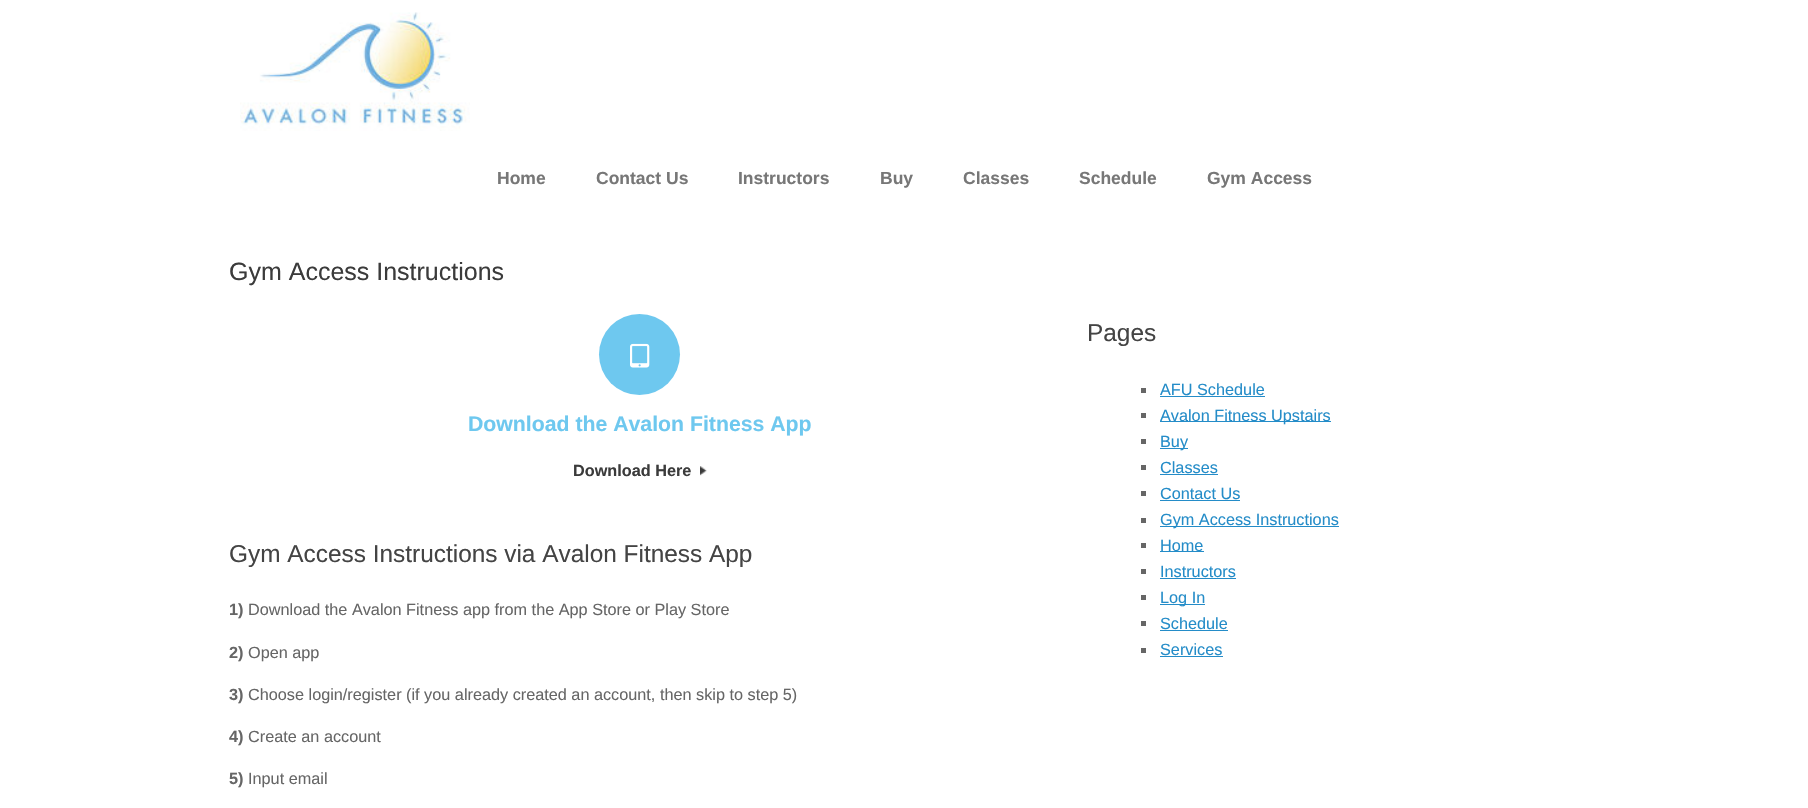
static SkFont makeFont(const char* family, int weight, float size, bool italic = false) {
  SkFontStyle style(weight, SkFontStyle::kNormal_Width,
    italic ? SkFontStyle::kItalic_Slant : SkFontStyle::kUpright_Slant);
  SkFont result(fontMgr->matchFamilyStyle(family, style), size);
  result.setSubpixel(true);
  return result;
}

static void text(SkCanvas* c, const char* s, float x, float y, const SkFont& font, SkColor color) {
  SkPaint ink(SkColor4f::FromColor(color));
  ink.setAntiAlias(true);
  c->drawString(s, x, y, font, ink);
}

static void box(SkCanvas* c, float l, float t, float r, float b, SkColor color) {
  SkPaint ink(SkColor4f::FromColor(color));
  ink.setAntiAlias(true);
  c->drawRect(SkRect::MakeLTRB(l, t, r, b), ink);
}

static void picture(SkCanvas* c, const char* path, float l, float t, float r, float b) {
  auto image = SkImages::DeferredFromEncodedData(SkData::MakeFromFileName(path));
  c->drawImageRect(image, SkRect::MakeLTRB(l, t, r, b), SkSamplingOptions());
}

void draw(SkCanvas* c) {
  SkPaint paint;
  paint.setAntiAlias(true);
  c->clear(0xffffffff);
  picture(c, "img_01.png", 240, 12, 470, 131);
  SkFont face1 = makeFont("Liberation Sans", 700, 17.5f);
  text(c, "Home", 497, 184, face1, 0xff777777);
  text(c, "Contact Us", 596, 184, face1, 0xff777777);
  text(c, "Instructors", 738, 184, face1, 0xff777777);
  text(c, "Buy", 880, 184, face1, 0xff777777);
  text(c, "Classes", 963, 184, face1, 0xff777777);
  text(c, "Schedule", 1079, 184, face1, 0xff777777);
  text(c, "Gym Access", 1207, 184, face1, 0xff777777);
  SkFont face2 = makeFont("Liberation Sans", 400, 25);
  text(c, "Gym Access Instructions", 229, 280, face2, 0xff3b3b3b);
  paint.setColor(0xff6ec8ef);
  c->drawCircle(639.5f, 354.5f, 40.5f, paint);
  picture(c, "img_02.png", 630, 343, 650, 368);
  SkFont face3 = makeFont("Liberation Sans", 700, 21.25f);
  text(c, "Download the Avalon Fitness App", 468, 431, face3, 0xff6ec8ef);
  SkFont face4 = makeFont("Liberation Sans", 700, 16.25f);
  text(c, "Download Here", 573, 476, face4, 0xff3b3b3b);
  picture(c, "img_03.png", 700, 466, 707, 476);
  SkFont face5 = makeFont("Liberation Sans", 400, 24.4f);
  text(c, "Gym Access Instructions via Avalon Fitness App", 229, 562, face5, 0xff444444);
  text(c, "1)", 229, 615, face4, 0xff666666);
  SkFont face6 = makeFont("Liberation Sans", 400, 16.25f);
  text(c, "Download the Avalon Fitness app from the App Store or Play Store", 248, 615, face6, 0xff666666);
  text(c, "2)", 229, 658, face4, 0xff666666);
  text(c, "Open app", 248, 658, face6, 0xff666666);
  text(c, "3)", 229, 700, face4, 0xff666666);
  text(c, "Choose login/register (if you already created an account, then skip to step 5)", 248, 700, face6, 0xff666666);
  text(c, "4)", 229, 742, face4, 0xff666666);
  text(c, "Create an account", 248, 742, face6, 0xff666666);
  text(c, "5)", 229, 784, face4, 0xff666666);
  text(c, "Input email", 248, 784, face6, 0xff666666);
  text(c, "Pages", 1087, 341, face5, 0xff444444);
  box(c, 1141, 388, 1146, 393, 0xff666666);
  text(c, "AFU Schedule", 1160, 395, face6, 0xff248cc8);
  box(c, 1160, 396, 1265, 397, 0xff248cc8);
  box(c, 1141, 413, 1146, 418, 0xff666666);
  box(c, 1160, 421, 1331, 422, 0xff248cc8);
  text(c, "Avalon Fitness Upstairs", 1160, 421, face6, 0xff248cc8);
  box(c, 1141, 439, 1146, 444, 0xff666666);
  box(c, 1160, 448, 1188, 449, 0xff248cc8);
  text(c, "Buy", 1160, 447, face6, 0xff248cc8);
  box(c, 1141, 465, 1146, 470, 0xff666666);
  text(c, "Classes", 1160, 473, face6, 0xff248cc8);
  box(c, 1160, 474, 1218, 475, 0xff248cc8);
  box(c, 1141, 491, 1146, 496, 0xff666666);
  text(c, "Contact Us", 1160, 499, face6, 0xff248cc8);
  box(c, 1160, 500, 1240, 501, 0xff248cc8);
  box(c, 1141, 518, 1146, 523, 0xff666666);
  box(c, 1160, 526, 1339, 527, 0xff248cc8);
  text(c, "Gym Access Instructions", 1160, 525, face6, 0xff248cc8);
  box(c, 1141, 543, 1146, 548, 0xff666666);
  box(c, 1160, 551, 1204, 552, 0xff248cc8);
  text(c, "Home", 1160, 551, face6, 0xff248cc8);
  box(c, 1141, 569, 1146, 574, 0xff666666);
  text(c, "Instructors", 1160, 577, face6, 0xff248cc8);
  box(c, 1160, 578, 1236, 579, 0xff248cc8);
  box(c, 1141, 595, 1146, 600, 0xff666666);
  box(c, 1160, 604, 1205, 605, 0xff248cc8);
  text(c, "Log In", 1160, 603, face6, 0xff248cc8);
  box(c, 1141, 621, 1146, 626, 0xff666666);
  text(c, "Schedule", 1160, 629, face6, 0xff248cc8);
  box(c, 1160, 630, 1228, 631, 0xff248cc8);
  box(c, 1141, 648, 1146, 653, 0xff666666);
  text(c, "Services", 1160, 655, face6, 0xff248cc8);
  box(c, 1160, 656, 1223, 657, 0xff248cc8);
}
